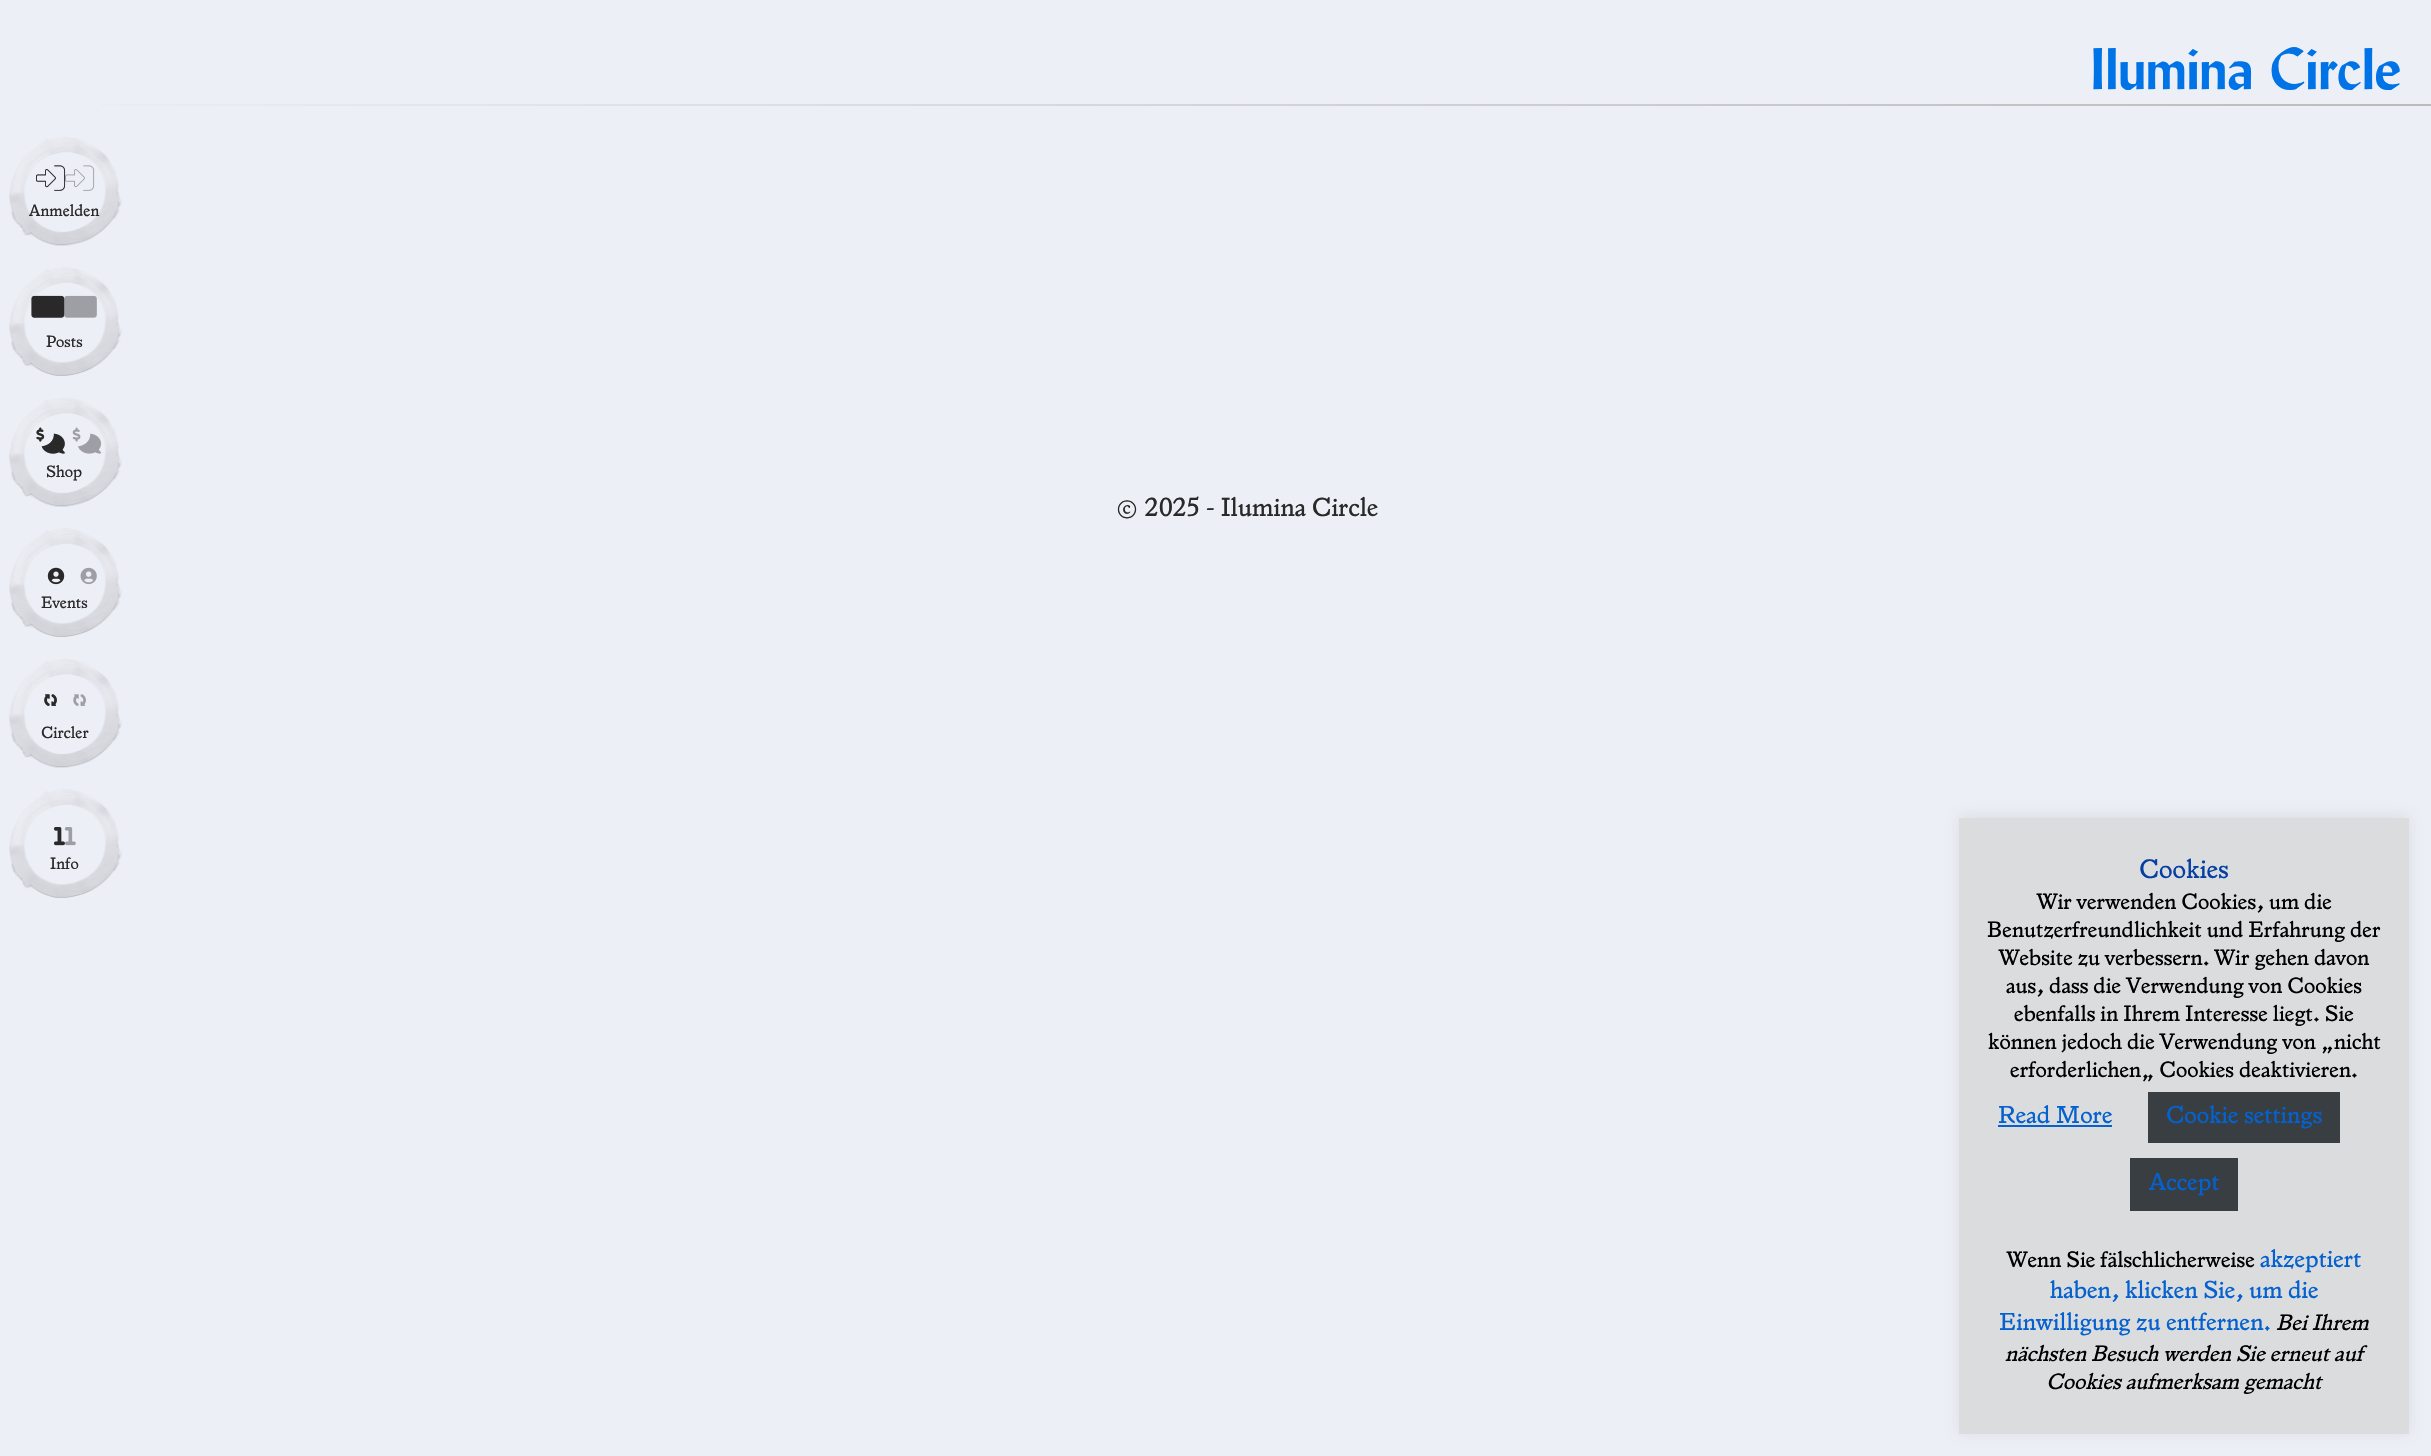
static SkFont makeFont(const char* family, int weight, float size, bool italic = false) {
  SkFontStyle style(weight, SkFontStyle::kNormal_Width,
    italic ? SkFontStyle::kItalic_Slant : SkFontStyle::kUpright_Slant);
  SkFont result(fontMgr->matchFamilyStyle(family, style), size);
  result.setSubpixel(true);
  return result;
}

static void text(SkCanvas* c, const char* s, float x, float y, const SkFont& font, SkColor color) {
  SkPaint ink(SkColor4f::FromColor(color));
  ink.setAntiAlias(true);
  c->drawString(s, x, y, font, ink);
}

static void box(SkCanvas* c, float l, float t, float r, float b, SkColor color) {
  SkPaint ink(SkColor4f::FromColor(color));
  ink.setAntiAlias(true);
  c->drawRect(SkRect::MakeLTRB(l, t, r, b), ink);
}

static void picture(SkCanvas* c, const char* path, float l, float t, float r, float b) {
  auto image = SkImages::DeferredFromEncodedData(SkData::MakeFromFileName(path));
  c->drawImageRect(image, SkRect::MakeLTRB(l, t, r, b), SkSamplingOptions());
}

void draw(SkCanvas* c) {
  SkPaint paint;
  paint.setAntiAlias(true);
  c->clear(0xffedeff7);
  SkFont face1 = makeFont("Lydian", 700, 58);
  text(c, "Ilumina Circle", 2090, 89, face1, 0xff0073e6);
  {
    const SkColor colors[] = {0xffedeff7, 0xffbbbbbb};
    const float stops[] = {0, 1};
    const SkPoint ends[] = {{0, 104}, {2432, 104}};
    paint.setShader(SkGradientShader::MakeLinear(ends, colors, stops, 2, SkTileMode::kClamp));
    paint.setAlpha(255);
  }
  c->drawRect(SkRect::MakeLTRB(101, 104, 2431, 106), paint);
  picture(c, "img_01.png", 9, 137, 122, 246);
  picture(c, "img_02.png", 36, 165, 66, 191);
  picture(c, "img_03.png", 36, 165, 95, 191);
  SkFont face2 = makeFont("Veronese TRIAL", 400, 16.5f);
  text(c, "Anmelden", 29, 216, face2, 0xff292929);
  picture(c, "img_04.png", 9, 267, 122, 376);
  picture(c, "img_05.png", 31, 295, 65, 318);
  picture(c, "img_06.png", 31, 295, 97, 318);
  text(c, "Posts", 46, 347, face2, 0xff292929);
  picture(c, "img_01.png", 9, 398, 122, 507);
  picture(c, "img_07.png", 36, 427, 65, 454);
  picture(c, "img_08.png", 36, 427, 102, 454);
  text(c, "Shop", 46, 477, face2, 0xff292929);
  picture(c, "img_04.png", 9, 528, 122, 637);
  picture(c, "img_09.png", 47, 567, 65, 585);
  picture(c, "img_10.png", 47, 567, 97, 585);
  text(c, "Events", 41, 608, face2, 0xff292929);
  picture(c, "img_01.png", 9, 659, 122, 768);
  picture(c, "img_11.png", 44, 694, 57, 706);
  picture(c, "img_12.png", 44, 694, 86, 706);
  text(c, "Circler", 41, 738, face2, 0xff292929);
  picture(c, "img_04.png", 9, 789, 122, 898);
  picture(c, "img_13.png", 54, 827, 65, 846);
  picture(c, "img_14.png", 54, 827, 76, 846);
  text(c, "Info", 50, 869, face2, 0xff292929);
  SkFont face3 = makeFont("Veronese TRIAL", 400, 26.5f);
  text(c, "© 2025 - Ilumina Circle", 1115, 516, face3, 0xff292929);
  paint.setShader(nullptr);
  paint.setColor(0x4dacabab);
  paint.setMaskFilter(SkMaskFilter::MakeBlur(kNormal_SkBlurStyle, 7.5f));
  c->drawRect(SkRect::MakeLTRB(1959, 816, 2409, 1433), paint);
  paint.setMaskFilter(nullptr);
  box(c, 1959, 818, 2409, 1434, 0xffdbdcdd);
  SkFont face4 = makeFont("Veronese TRIAL", 400, 27);
  text(c, "Cookies", 2139, 878, face4, 0xff063fa3);
  SkFont face5 = makeFont("Veronese TRIAL", 400, 22.5f);
  text(c, "Wir verwenden Cookies, um die", 2037, 909, face5, 0xff000000);
  text(c, "Benutzerfreundlichkeit und Erfahrung der", 1987, 937, face5, 0xff000000);
  text(c, "Website zu verbessern. Wir gehen davon", 1999, 965, face5, 0xff000000);
  text(c, "aus, dass die Verwendung von Cookies", 2006, 993, face5, 0xff000000);
  text(c, "ebenfalls in Ihrem Interesse liegt. Sie", 2014, 1021, face5, 0xff000000);
  text(c, "können jedoch die Verwendung von \"nicht", 1988, 1049, face5, 0xff000000);
  text(c, "erforderlichen\" Cookies deaktivieren.", 2010, 1077, face5, 0xff000000);
  SkFont face6 = makeFont("Veronese TRIAL", 400, 24.75f);
  text(c, "Read More", 1998, 1123, face6, 0xff0461cf);
  box(c, 1998, 1125, 2112, 1127, 0xff0461cf);
  box(c, 2148, 1092, 2340, 1143, 0xff383e42);
  text(c, "Cookie settings", 2166, 1123, face6, 0xff0461cf);
  box(c, 2130, 1158, 2238, 1211, 0xff383e42);
  text(c, "Accept", 2149, 1190, face6, 0xff0461cf);
  text(c, "Wenn Sie fälschlicherweise", 2007, 1267, face5, 0xff000000);
  text(c, "akzeptiert", 2260, 1267, face6, 0xff0461cf);
  text(c, "haben, klicken Sie, um die", 2050, 1298, face6, 0xff0461cf);
  text(c, "Einwilligung zu entfernen.", 1999, 1330, face6, 0xff0461cf);
  SkFont face7 = makeFont("Veronese TRIAL", 400, 22.5f, true);
  text(c, "Bei Ihrem", 2276, 1330, face7, 0xff000000);
  text(c, "nächsten Besuch werden Sie erneut auf", 2005, 1361, face7, 0xff000000);
  text(c, "Cookies aufmerksam gemacht", 2046, 1389, face7, 0xff000000);
}
